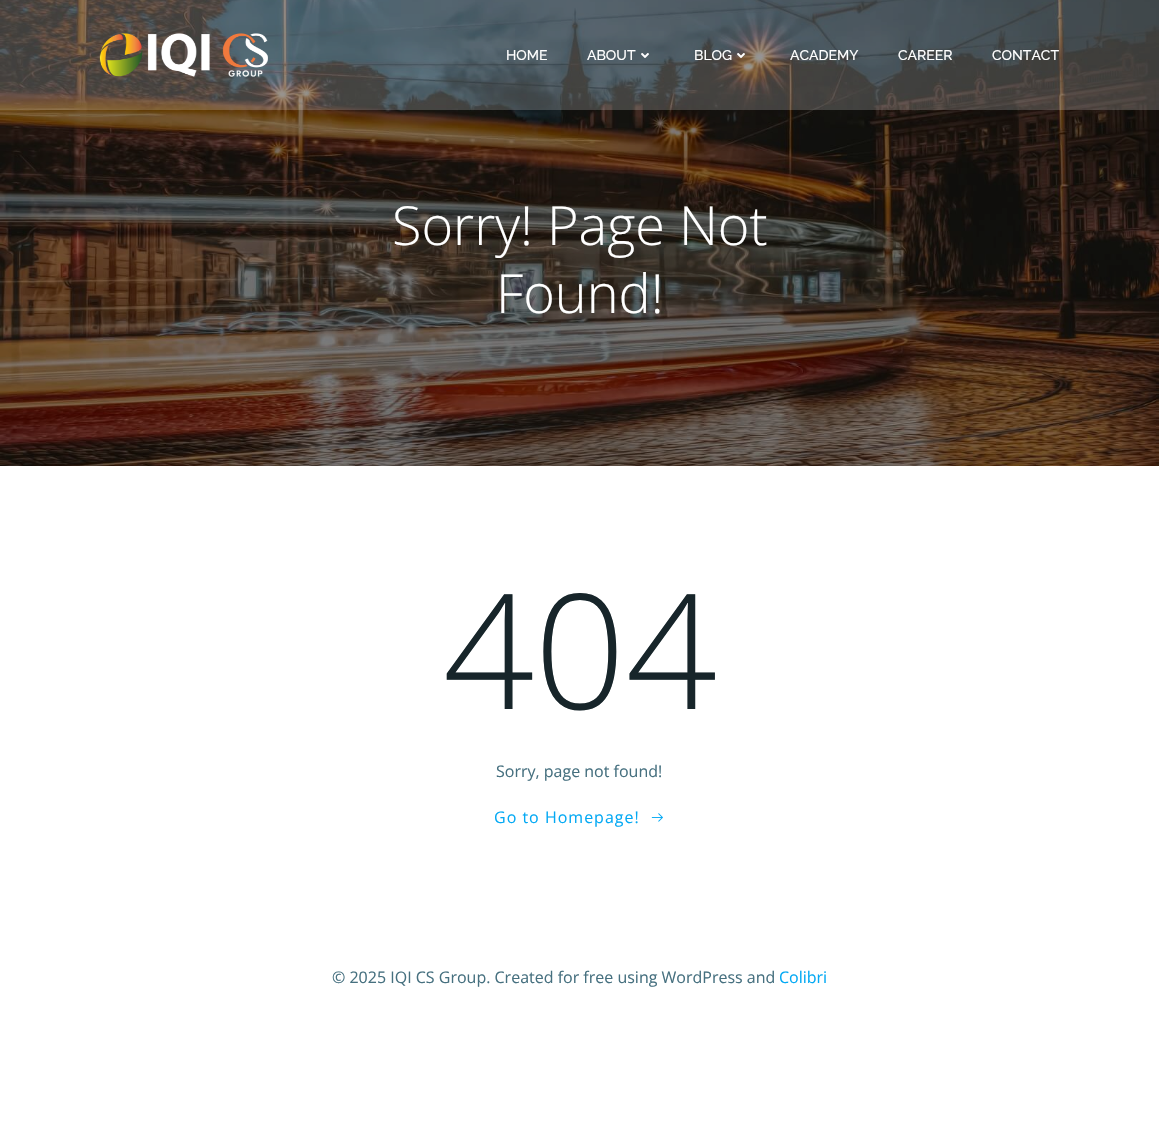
static SkFont makeFont(const char* family, int weight, float size, bool italic = false) {
  SkFontStyle style(weight, SkFontStyle::kNormal_Width,
    italic ? SkFontStyle::kItalic_Slant : SkFontStyle::kUpright_Slant);
  SkFont result(fontMgr->matchFamilyStyle(family, style), size);
  result.setSubpixel(true);
  return result;
}

static void text(SkCanvas* c, const char* s, float x, float y, const SkFont& font, SkColor color) {
  SkPaint ink(SkColor4f::FromColor(color));
  ink.setAntiAlias(true);
  c->drawString(s, x, y, font, ink);
}

static void spacedText(SkCanvas* c, const char* s, float x, float y, const SkFont& font, const SkPaint& ink, float letter, float word) {
  std::vector<SkGlyphID> glyphs(font.countText(s, strlen(s), SkTextEncoding::kUTF8));
  std::vector<float> xs(glyphs.size());
  font.textToGlyphs(s, strlen(s), SkTextEncoding::kUTF8, glyphs);
  font.getXPos(glyphs, xs, x);
  float extra = 0;
  for (size_t i = 0; i < glyphs.size(); i++) {
    xs[i] += extra;
    extra += letter + word * (glyphs[i] == font.unicharToGlyph(' '));
  }
  c->drawTextBlob(SkTextBlob::MakeFromPosHGlyphs(glyphs, xs, y, font), 0, 0, ink);
}

static void box(SkCanvas* c, float l, float t, float r, float b, SkColor color) {
  SkPaint ink(SkColor4f::FromColor(color));
  ink.setAntiAlias(true);
  c->drawRect(SkRect::MakeLTRB(l, t, r, b), ink);
}

static void picture(SkCanvas* c, const char* path, float l, float t, float r, float b) {
  auto image = SkImages::DeferredFromEncodedData(SkData::MakeFromFileName(path));
  c->drawImageRect(image, SkRect::MakeLTRB(l, t, r, b), SkSamplingOptions());
}

void draw(SkCanvas* c) {
  SkPaint paint;
  paint.setAntiAlias(true);
  c->clear(0xffffffff);
  picture(c, "img_04.png", 0, 0, 1159, 466);
  box(c, 0, 0, 1159, 110, 0x33ffffff);
  picture(c, "img_01.png", 99, 33, 268, 77);
  SkFont face1 = makeFont("Raleway", 500, 14);
  text(c, "HOME", 506, 60, face1, 0xffffffff);
  text(c, "ABOUT", 587, 60, face1, 0xffffffff);
  picture(c, "img_02.png", 641, 53, 649, 58);
  text(c, "BLOG", 694, 60, face1, 0xffffffff);
  picture(c, "img_03.png", 737, 53, 745, 58);
  text(c, "ACADEMY", 790, 60, face1, 0xffffffff);
  text(c, "CAREER", 898, 60, face1, 0xffffffff);
  text(c, "CONTACT", 992, 60, face1, 0xffffffff);
  SkFont face2 = makeFont("Open Sans", 300, 54);
  text(c, "Sorry! Page Not", 392, 245, face2, 0xffffffff);
  text(c, "Found!", 496, 313, face2, 0xffffffff);
  SkFont face3 = makeFont("Open Sans", 300, 160);
  text(c, "404", 443, 709, face3, 0xff17252a);
  SkFont face4 = makeFont("Open Sans", 400, 16);
  text(c, "Sorry, page not found!", 496, 777, face4, 0xff46707f);
  paint.setColor(0xff03a9f4);
  spacedText(c, "Go to Homepage!", 494, 823, face4, paint, 1, 0);
  picture(c, "img_05.png", 651, 813, 663, 822);
  text(c, "© 2025 IQI CS Group. Created for free using WordPress and", 332, 983, face4, 0xff46707f);
  text(c, "Colibri", 779, 983, face4, 0xff03a9f4);
}
